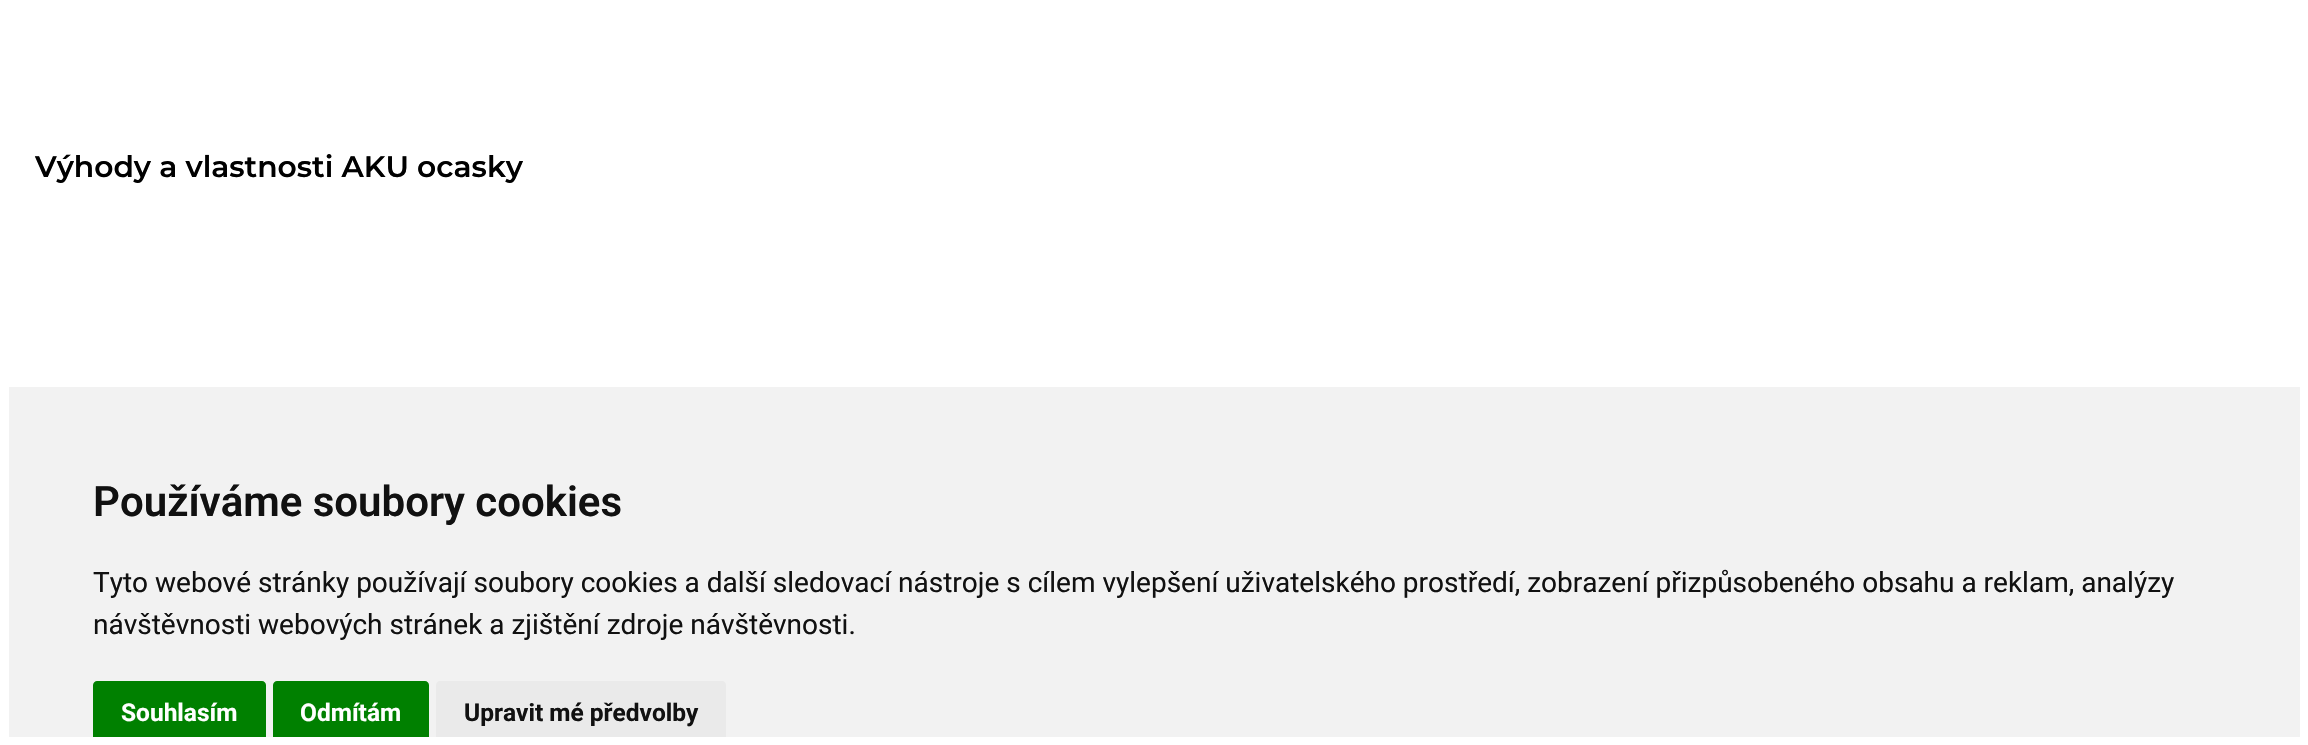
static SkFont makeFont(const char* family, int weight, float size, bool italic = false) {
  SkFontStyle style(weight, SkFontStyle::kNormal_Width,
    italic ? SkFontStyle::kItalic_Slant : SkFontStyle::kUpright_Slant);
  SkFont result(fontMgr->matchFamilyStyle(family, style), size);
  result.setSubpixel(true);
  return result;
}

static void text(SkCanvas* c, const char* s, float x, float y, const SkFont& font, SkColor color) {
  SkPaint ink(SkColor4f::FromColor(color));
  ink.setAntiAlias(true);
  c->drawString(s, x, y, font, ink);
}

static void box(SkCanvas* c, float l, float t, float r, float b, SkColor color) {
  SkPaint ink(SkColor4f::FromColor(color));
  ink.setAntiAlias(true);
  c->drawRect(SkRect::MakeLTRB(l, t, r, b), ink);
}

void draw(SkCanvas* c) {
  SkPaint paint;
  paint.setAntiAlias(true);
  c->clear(0xffffffff);
  SkFont face1 = makeFont("Montserrat", 600, 29.75f);
  text(c, "Výhody a vlastnosti AKU ocasky", 35, 177, face1, 0xff000000);
  box(c, 9, 387, 2300, 737, 0xfff2f2f2);
  SkFont face2 = makeFont("Roboto", 600, 42);
  text(c, "Používáme soubory cookies", 93, 516, face2, 0xff111111);
  SkFont face3 = makeFont("Roboto", 400, 28);
  text(c, "Tyto webové stránky používají soubory cookies a další sledovací nástroje s cílem vylepšení uživatelského prostředí, zobrazení přizpůsobeného obsahu a reklam, analýzy", 93, 592, face3, 0xff111111);
  text(c, "návštěvnosti webových stránek a zjištění zdroje návštěvnosti.", 93, 634, face3, 0xff111111);
  paint.setColor(0xff008000);
  c->drawPath(SkPathBuilder().moveTo(97, 681).lineTo(262, 681).cubicTo(264, 681, 266, 683, 266, 685).lineTo(266, 737).lineTo(93, 737).lineTo(93, 685).cubicTo(93, 683, 95, 681, 97, 681).close().detach(), paint);
  SkFont face4 = makeFont("Roboto", 700, 24.5f);
  text(c, "Souhlasím", 121, 721, face4, 0xffffffff);
  c->drawPath(SkPathBuilder().moveTo(277, 681).lineTo(425, 681).cubicTo(427, 681, 429, 683, 429, 685).lineTo(429, 737).lineTo(273, 737).lineTo(273, 685).cubicTo(273, 683, 275, 681, 277, 681).close().detach(), paint);
  text(c, "Odmítám", 300, 721, face4, 0xffffffff);
  paint.setColor(0xffeaeaea);
  c->drawPath(SkPathBuilder().moveTo(440, 681).lineTo(722, 681).cubicTo(724, 681, 726, 683, 726, 685).lineTo(726, 737).lineTo(436, 737).lineTo(436, 685).cubicTo(436, 683, 438, 681, 440, 681).close().detach(), paint);
  text(c, "Upravit mé předvolby", 464, 721, face4, 0xff111111);
}
